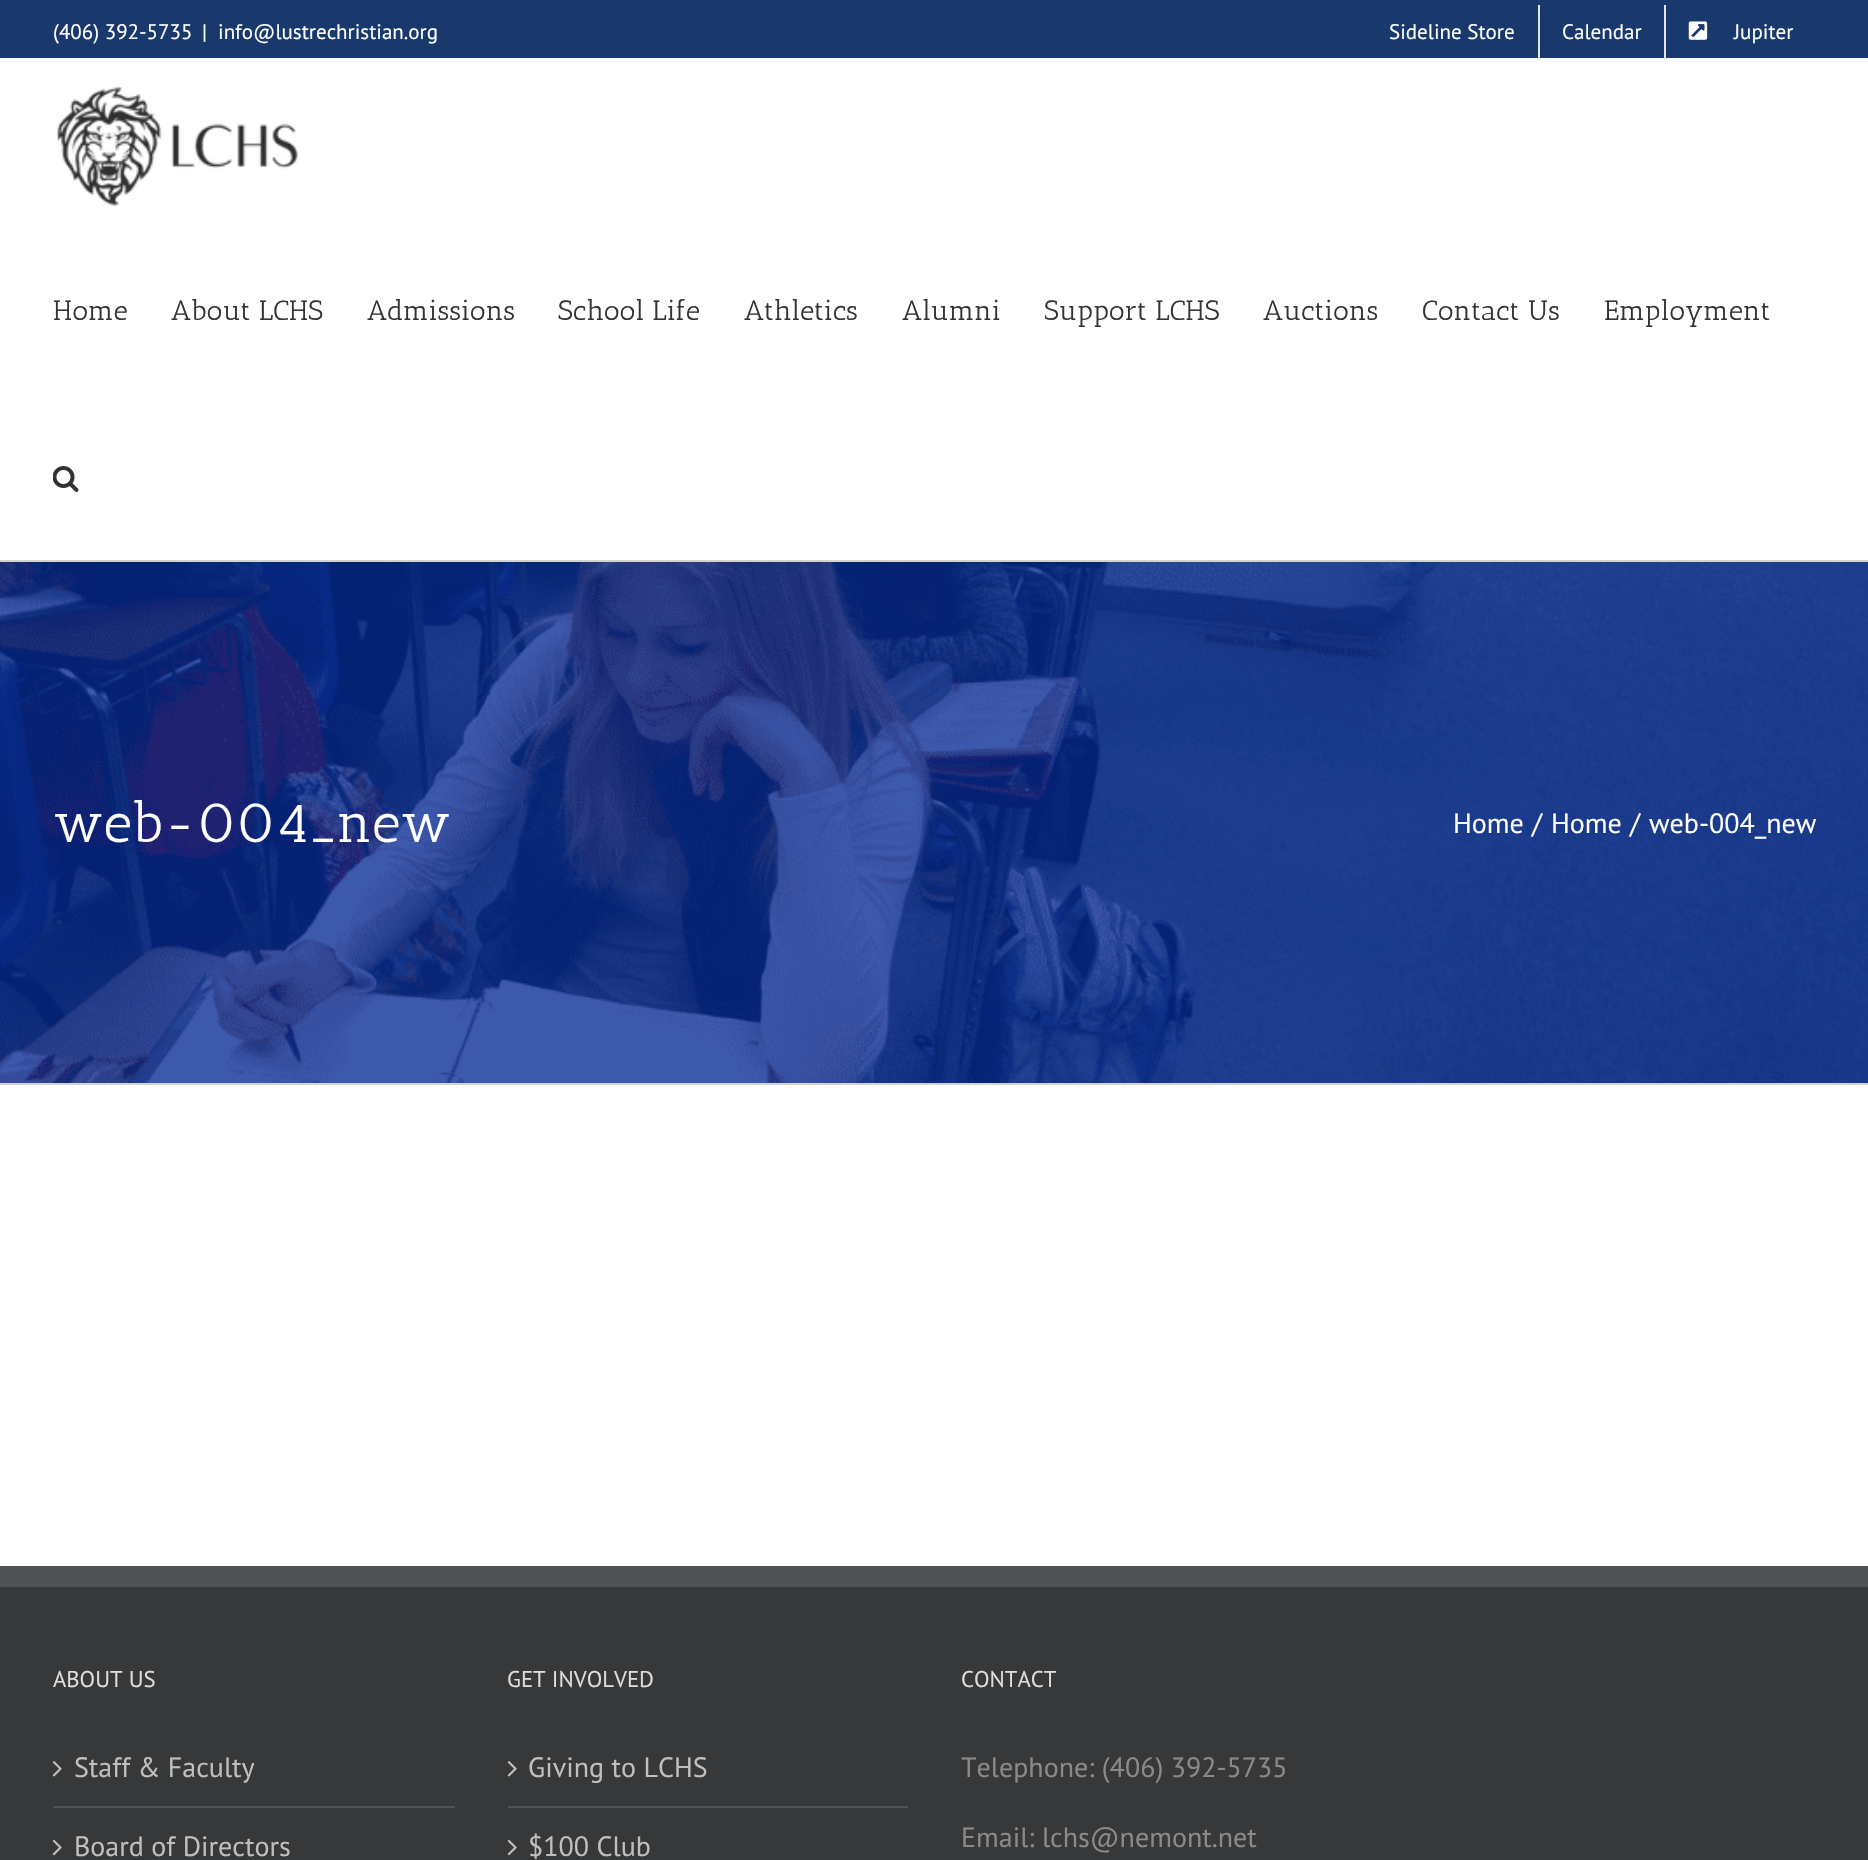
static SkFont makeFont(const char* family, int weight, float size, bool italic = false) {
  SkFontStyle style(weight, SkFontStyle::kNormal_Width,
    italic ? SkFontStyle::kItalic_Slant : SkFontStyle::kUpright_Slant);
  SkFont result(fontMgr->matchFamilyStyle(family, style), size);
  result.setSubpixel(true);
  return result;
}

static void text(SkCanvas* c, const char* s, float x, float y, const SkFont& font, SkColor color) {
  SkPaint ink(SkColor4f::FromColor(color));
  ink.setAntiAlias(true);
  c->drawString(s, x, y, font, ink);
}

static void box(SkCanvas* c, float l, float t, float r, float b, SkColor color) {
  SkPaint ink(SkColor4f::FromColor(color));
  ink.setAntiAlias(true);
  c->drawRect(SkRect::MakeLTRB(l, t, r, b), ink);
}

static void picture(SkCanvas* c, const char* path, float l, float t, float r, float b) {
  auto image = SkImages::DeferredFromEncodedData(SkData::MakeFromFileName(path));
  c->drawImageRect(image, SkRect::MakeLTRB(l, t, r, b), SkSamplingOptions());
}

void draw(SkCanvas* c) {
  SkPaint paint;
  paint.setAntiAlias(true);
  c->clear(0xffffffff);
  box(c, 0, 0, 1868, 58, 0xff19396c);
  SkFont face1 = makeFont("PT Sans", 400, 21);
  text(c, "(406) 392-5735", 53, 39, face1, 0xffffffff);
  text(c, "|", 202, 39, face1, 0xffffffff);
  text(c, "info@lustrechristian.org", 218, 39, face1, 0xffffffff);
  text(c, "Sideline Store", 1389, 39, face1, 0xffffffff);
  box(c, 1538, 5, 1540, 58, 0xffe5e5e5);
  text(c, "Calendar", 1562, 39, face1, 0xffffffff);
  box(c, 1664, 5, 1666, 58, 0xffe5e5e5);
  picture(c, "img_01.png", 1688, 21, 1708, 40);
  text(c, "Jupiter", 1734, 39, face1, 0xffffffff);
  picture(c, "img_02.png", 57, 87, 298, 207);
  SkFont face2 = makeFont("Antic Slab", 400, 28);
  text(c, "Home", 53, 320, face2, 0xff333333);
  text(c, "About LCHS", 171, 320, face2, 0xff333333);
  text(c, "Admissions", 367, 320, face2, 0xff333333);
  text(c, "School Life", 558, 320, face2, 0xff333333);
  text(c, "Athletics", 744, 320, face2, 0xff333333);
  text(c, "Alumni", 902, 320, face2, 0xff333333);
  c->save();
  c->clipRect(SkRect::MakeLTRB(1045, 226, 1264, 392));
  text(c, "Support LCHS", 1044, 320, face2, 0xff333333);
  c->restore();
  text(c, "Auctions", 1263, 320, face2, 0xff333333);
  text(c, "Contact Us", 1422, 320, face2, 0xff333333);
  text(c, "Employment", 1604, 320, face2, 0xff333333);
  picture(c, "img_03.png", 53, 466, 79, 492);
  picture(c, "img_04.png", 0, 562, 1868, 1083);
  box(c, 0, 560, 1868, 562, 0xffd2d3d4);
  box(c, 0, 1083, 1868, 1085, 0xffd2d3d4);
  SkFont face3 = makeFont("Antic Slab", 400, 56);
  text(c, "web-004_new", 53, 842, face3, 0xffffffff);
  SkFont face4 = makeFont("PT Sans", 400, 28);
  text(c, "Home", 1453, 833, face4, 0xffffffff);
  text(c, "/", 1532, 833, face4, 0xffffffff);
  text(c, "Home", 1551, 833, face4, 0xffffffff);
  text(c, "/", 1630, 833, face4, 0xffffffff);
  text(c, "web-004_new", 1649, 833, face4, 0xffffffff);
  box(c, 0, 1587, 1868, 1860, 0xff363839);
  box(c, 0, 1566, 1868, 1587, 0xff505152);
  SkFont face5 = makeFont("PT Sans", 400, 22.75f);
  text(c, "ABOUT US", 53, 1687, face5, 0xffdddddd);
  box(c, 53, 1806, 455, 1808, 0xff505152);
  picture(c, "img_05.png", 52, 1761, 62, 1777);
  text(c, "Staff & Faculty", 74, 1777, face4, 0xffbfbfbf);
  picture(c, "img_06.png", 52, 1839, 62, 1856);
  text(c, "Board of Directors", 74, 1856, face4, 0xffbfbfbf);
  text(c, "GET INVOLVED", 507, 1687, face5, 0xffdddddd);
  box(c, 508, 1806, 908, 1808, 0xff505152);
  picture(c, "img_05.png", 507, 1761, 517, 1777);
  text(c, "Giving to LCHS", 528, 1777, face4, 0xffbfbfbf);
  picture(c, "img_06.png", 507, 1839, 517, 1856);
  text(c, "$100 Club", 528, 1856, face4, 0xffbfbfbf);
  text(c, "CONTACT", 961, 1687, face5, 0xffdddddd);
  text(c, "Telephone: (406) 392-5735", 961, 1777, face4, 0xff8c8989);
  text(c, "Email: lchs@nemont.net", 961, 1847, face4, 0xff8c8989);
}
